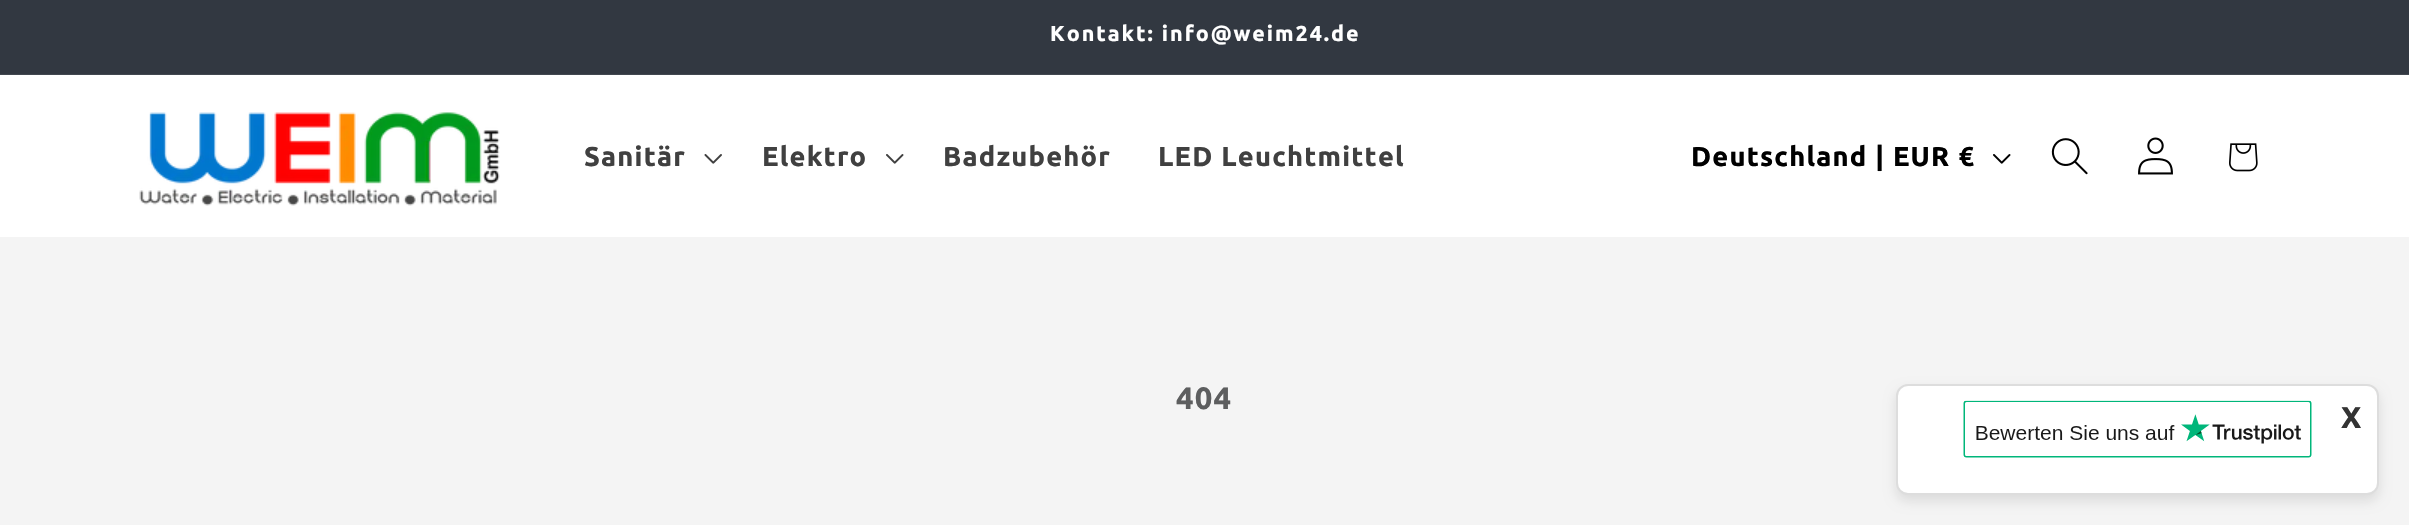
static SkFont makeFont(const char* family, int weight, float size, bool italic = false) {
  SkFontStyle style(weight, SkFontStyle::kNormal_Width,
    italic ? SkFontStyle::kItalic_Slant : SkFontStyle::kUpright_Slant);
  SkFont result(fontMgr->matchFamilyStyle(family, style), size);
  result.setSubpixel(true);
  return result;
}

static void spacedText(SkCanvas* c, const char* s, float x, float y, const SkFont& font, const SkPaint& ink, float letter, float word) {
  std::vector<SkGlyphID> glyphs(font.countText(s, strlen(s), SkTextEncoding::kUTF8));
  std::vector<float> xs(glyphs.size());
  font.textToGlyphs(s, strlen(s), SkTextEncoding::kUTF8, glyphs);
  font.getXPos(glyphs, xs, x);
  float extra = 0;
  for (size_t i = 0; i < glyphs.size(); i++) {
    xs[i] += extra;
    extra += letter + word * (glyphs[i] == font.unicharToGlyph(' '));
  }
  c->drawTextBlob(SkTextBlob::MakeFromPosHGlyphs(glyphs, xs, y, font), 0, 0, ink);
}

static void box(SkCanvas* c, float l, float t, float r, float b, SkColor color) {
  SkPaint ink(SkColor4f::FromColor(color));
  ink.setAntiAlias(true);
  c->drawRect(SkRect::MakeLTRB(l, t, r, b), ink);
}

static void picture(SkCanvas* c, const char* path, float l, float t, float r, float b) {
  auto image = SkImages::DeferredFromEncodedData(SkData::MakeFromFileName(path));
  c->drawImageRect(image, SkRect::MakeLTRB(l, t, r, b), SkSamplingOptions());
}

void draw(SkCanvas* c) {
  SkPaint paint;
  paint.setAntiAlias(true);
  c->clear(0xfff4f4f4);
  box(c, 0, 0, 2409, 74, 0xff323841);
  box(c, 0, 74, 2409, 75, 0xff424850);
  SkFont face1 = makeFont("Ubuntu", 700, 21.5f);
  paint.setColor(0xffffffff);
  spacedText(c, "Kontakt: info@weim24.de", 1050, 41, face1, paint, 1.95f, 0);
  box(c, 0, 75, 2409, 237, 0xffffffff);
  picture(c, "img_01.png", 139, 112, 500, 206);
  SkFont face2 = makeFont("Ubuntu", 700, 27.25f);
  paint.setColor(0xff404040);
  spacedText(c, "Sanitär", 584, 166, face2, paint, 1.2f, 0);
  picture(c, "img_02.png", 704, 154, 722, 164);
  spacedText(c, "Elektro", 762, 166, face2, paint, 1.2f, 0);
  picture(c, "img_03.png", 886, 154, 904, 164);
  spacedText(c, "Badzubehör", 943, 166, face2, paint, 1.2f, 0);
  spacedText(c, "LED Leuchtmittel", 1158, 166, face2, paint, 1.2f, 0);
  paint.setColor(0xff000000);
  spacedText(c, "Deutschland | EUR €", 1691, 166, face2, paint, 1.2f, 0);
  picture(c, "img_04.png", 1993, 154, 2011, 164);
  picture(c, "img_05.png", 2051, 138, 2088, 175);
  picture(c, "img_06.png", 2138, 137, 2173, 175);
  picture(c, "img_07.png", 2229, 143, 2258, 172);
  SkFont face3 = makeFont("Ubuntu", 700, 31);
  paint.setColor(0xff5d5e5f);
  spacedText(c, "404", 1176, 409, face3, paint, 1.2f, 0);
  paint.setColor(0x1a000000);
  paint.setMaskFilter(SkMaskFilter::MakeBlur(kNormal_SkBlurStyle, 6));
  c->drawRoundRect(SkRect::MakeLTRB(1896, 390, 2379, 501), 12, 12, paint);
  paint.setMaskFilter(nullptr);
  paint.setColor(0xffffffff);
  c->drawRoundRect(SkRect::MakeLTRB(1897, 385, 2378, 494), 11, 11, paint);
  paint.setStyle(SkPaint::kStroke_Style);
  paint.setStrokeWidth(2);
  paint.setColor(0xffdddddd);
  c->drawRoundRect(SkRect::MakeLTRB(1897, 385, 2378, 494), 11, 11, paint);
  picture(c, "img_08.png", 1963, 400, 2312, 458);
  SkFont face4 = makeFont("Ubuntu", 700, 30);
  paint.setStyle(SkPaint::kFill_Style);
  paint.setColor(0xff333333);
  spacedText(c, "X", 2341, 428, face4, paint, 1.2f, 0);
}
